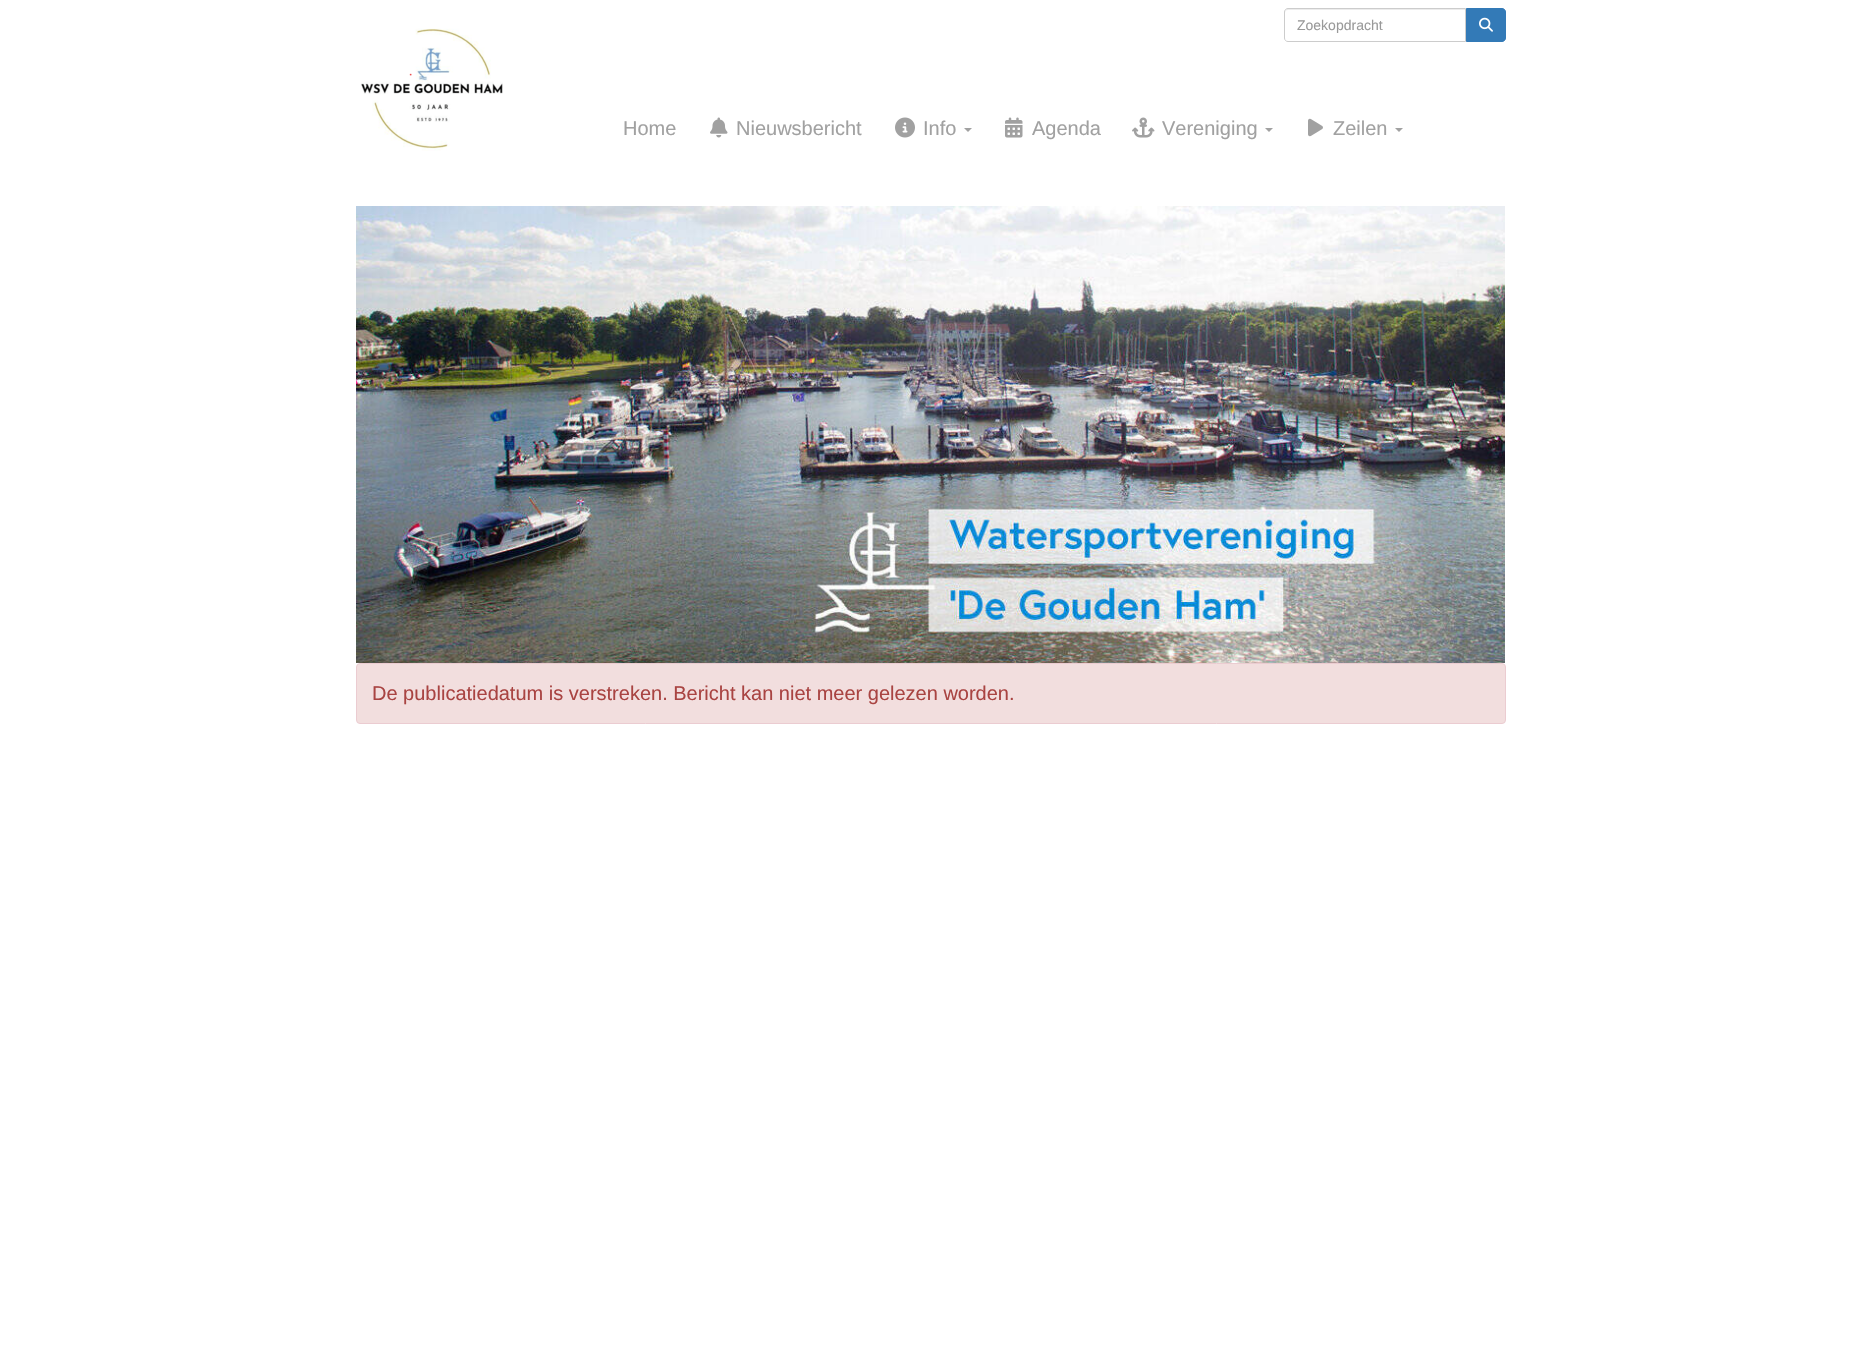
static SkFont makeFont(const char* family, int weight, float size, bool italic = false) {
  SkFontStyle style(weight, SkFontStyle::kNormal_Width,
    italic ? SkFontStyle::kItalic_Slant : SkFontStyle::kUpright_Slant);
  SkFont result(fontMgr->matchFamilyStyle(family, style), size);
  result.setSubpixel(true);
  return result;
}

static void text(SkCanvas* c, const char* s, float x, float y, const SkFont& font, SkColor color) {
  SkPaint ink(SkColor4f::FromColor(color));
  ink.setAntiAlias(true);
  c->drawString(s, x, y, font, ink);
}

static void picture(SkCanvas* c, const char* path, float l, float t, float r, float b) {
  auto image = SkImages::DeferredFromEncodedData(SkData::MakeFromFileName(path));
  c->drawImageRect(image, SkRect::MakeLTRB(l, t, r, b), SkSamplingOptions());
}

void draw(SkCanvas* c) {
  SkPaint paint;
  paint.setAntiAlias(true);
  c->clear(0xffffffff);
  picture(c, "img_01.png", 361, 28, 503, 151);
  paint.setColor(0xffececec);
  c->drawPath(SkPathBuilder().moveTo(1288, 10).lineTo(1465, 10).lineTo(1465, 9).lineTo(1287, 9).cubicTo(1285, 10, 1285, 11, 1285, 13).cubicTo(1285, 11, 1286, 10, 1288, 10).close().detach(), paint);
  paint.setStyle(SkPaint::kStroke_Style);
  paint.setStrokeWidth(1);
  paint.setColor(0xffcccccc);
  c->drawPath(SkPathBuilder().moveTo(1288, 8.5f).lineTo(1465.5f, 8.5f).lineTo(1465.5f, 41.5f).lineTo(1288, 41.5f).cubicTo(1286, 41.5f, 1284.5f, 40, 1284.5f, 38).lineTo(1284.5f, 12).cubicTo(1284.5f, 10, 1286, 8.5f, 1288, 8.5f).close().detach(), paint);
  SkFont face1 = makeFont("Liberation Sans", 400, 14);
  text(c, "Zoekopdracht", 1297, 30, face1, 0xff999999);
  paint.setStyle(SkPaint::kFill_Style);
  paint.setColor(0xff337ab7);
  c->drawPath(SkPathBuilder().moveTo(1466.5f, 8.5f).lineTo(1502, 8.5f).cubicTo(1504, 8.5f, 1505.5f, 10, 1505.5f, 12).lineTo(1505.5f, 38).cubicTo(1505.5f, 40, 1504, 41.5f, 1502, 41.5f).lineTo(1466.5f, 41.5f).close().detach(), paint);
  paint.setStyle(SkPaint::kStroke_Style);
  c->drawPath(SkPathBuilder().moveTo(1466.5f, 8.5f).lineTo(1502, 8.5f).cubicTo(1504, 8.5f, 1505.5f, 10, 1505.5f, 12).lineTo(1505.5f, 38).cubicTo(1505.5f, 40, 1504, 41.5f, 1502, 41.5f).lineTo(1466.5f, 41.5f).close().detach(), paint);
  picture(c, "img_02.png", 1479, 17, 1493, 32);
  SkFont face2 = makeFont("Liberation Sans", 400, 20);
  text(c, "Home", 623, 135, face2, 0xffa1a1a1);
  picture(c, "img_03.png", 710, 117, 728, 138);
  text(c, "Nieuwsbericht", 736, 135, face2, 0xffa1a1a1);
  picture(c, "img_04.png", 895, 117, 915, 138);
  text(c, "Info", 923, 135, face2, 0xffa1a1a1);
  paint.setStyle(SkPaint::kFill_Style);
  paint.setColor(0xffa1a1a1);
  c->drawPath(SkPathBuilder().moveTo(964, 128).lineTo(972, 128).lineTo(968, 132).close().detach(), paint);
  picture(c, "img_05.png", 1005, 117, 1023, 138);
  text(c, "Agenda", 1032, 135, face2, 0xffa1a1a1);
  picture(c, "img_06.png", 1132, 117, 1155, 138);
  text(c, "Vereniging", 1162, 135, face2, 0xffa1a1a1);
  c->drawPath(SkPathBuilder().moveTo(1265, 128).lineTo(1273, 128).lineTo(1269, 132).close().detach(), paint);
  picture(c, "img_07.png", 1308, 118, 1323, 137);
  text(c, "Zeilen", 1333, 135, face2, 0xffa1a1a1);
  c->drawPath(SkPathBuilder().moveTo(1395, 128).lineTo(1403, 128).lineTo(1399, 132).close().detach(), paint);
  picture(c, "img_08.png", 356, 206, 1505, 663);
  paint.setColor(0xfff2dede);
  c->drawRoundRect(SkRect::MakeLTRB(356.5f, 663.5f, 1505.5f, 723.5f), 3.5f, 3.5f, paint);
  paint.setStyle(SkPaint::kStroke_Style);
  paint.setColor(0xffebccd1);
  c->drawRoundRect(SkRect::MakeLTRB(356.5f, 663.5f, 1505.5f, 723.5f), 3.5f, 3.5f, paint);
  text(c, "De publicatiedatum is verstreken. Bericht kan niet meer gelezen worden.", 372, 700, face2, 0xffa94442);
}
